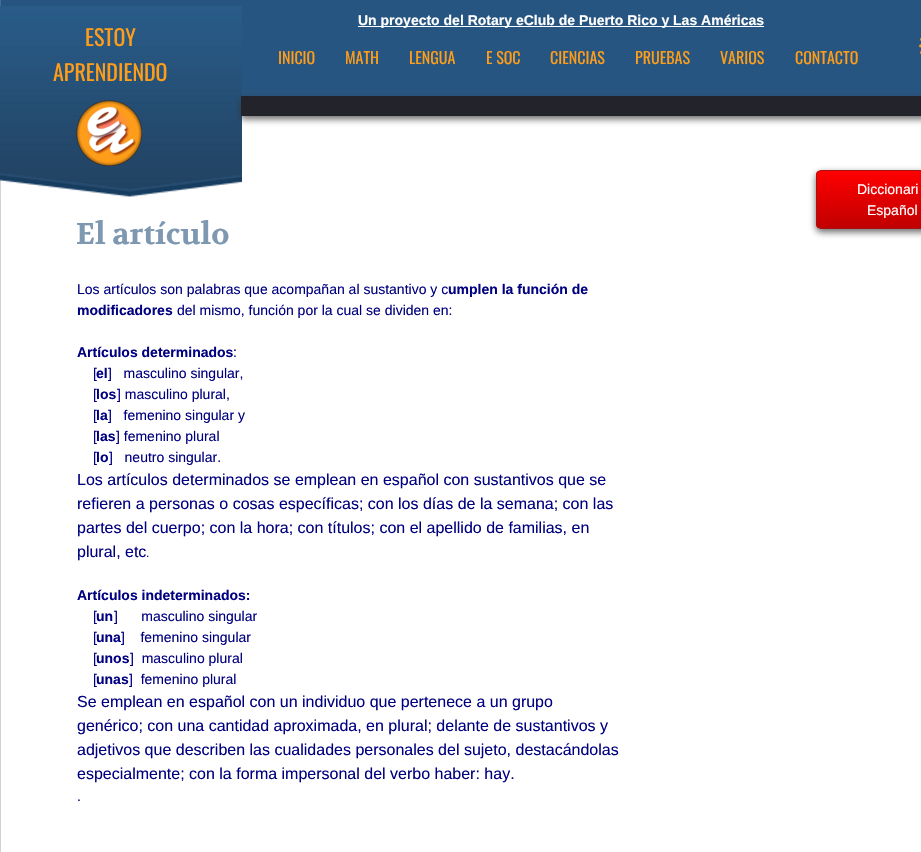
static SkFont makeFont(const char* family, int weight, float size, bool italic = false) {
  SkFontStyle style(weight, SkFontStyle::kNormal_Width,
    italic ? SkFontStyle::kItalic_Slant : SkFontStyle::kUpright_Slant);
  SkFont result(fontMgr->matchFamilyStyle(family, style), size);
  result.setSubpixel(true);
  return result;
}

static void text(SkCanvas* c, const char* s, float x, float y, const SkFont& font, SkColor color) {
  SkPaint ink(SkColor4f::FromColor(color));
  ink.setAntiAlias(true);
  c->drawString(s, x, y, font, ink);
}

static void box(SkCanvas* c, float l, float t, float r, float b, SkColor color) {
  SkPaint ink(SkColor4f::FromColor(color));
  ink.setAntiAlias(true);
  c->drawRect(SkRect::MakeLTRB(l, t, r, b), ink);
}

static void picture(SkCanvas* c, const char* path, float l, float t, float r, float b) {
  auto image = SkImages::DeferredFromEncodedData(SkData::MakeFromFileName(path));
  c->drawImageRect(image, SkRect::MakeLTRB(l, t, r, b), SkSamplingOptions());
}

void draw(SkCanvas* c) {
  SkPaint paint;
  paint.setAntiAlias(true);
  c->clear(0xffffffff);
  box(c, 0, 179, 1, 852, 0xffd3d1d1);
  box(c, 1, 0, 921, 96, 0xff275581);
  paint.setStyle(SkPaint::kStroke_Style);
  paint.setStrokeWidth(1);
  paint.setColor(0xff476c90);
  c->drawRect(SkRect::MakeLTRB(0.5f, -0.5f, 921.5f, 104.5f), paint);
  picture(c, "img_01.png", 0, 6, 242, 197);
  box(c, 358, 26, 764, 27, 0xffffffff);
  SkFont face1 = makeFont("Liberation Sans", 700, 14);
  text(c, "Un proyecto del Rotary eClub de Puerto Rico y Las Américas", 358, 25, face1, 0xffffffff);
  SkFont face2 = makeFont("Oswald", 400, 22);
  text(c, "ESTOY", 85, 46, face2, 0xfffd9d19);
  text(c, "APRENDIENDO", 53, 81, face2, 0xfffd9d19);
  picture(c, "img_02.png", 918, 37, 921, 55);
  SkFont face3 = makeFont("Oswald", 400, 16);
  text(c, "INICIO", 278, 64, face3, 0xfffd9d19);
  text(c, "MATH", 345, 64, face3, 0xfffd9d19);
  text(c, "LENGUA", 409, 64, face3, 0xfffd9d19);
  text(c, "E SOC", 486, 64, face3, 0xfffd9d19);
  text(c, "CIENCIAS", 550, 64, face3, 0xfffd9d19);
  text(c, "PRUEBAS", 635, 64, face3, 0xfffd9d19);
  text(c, "VARIOS", 720, 64, face3, 0xfffd9d19);
  text(c, "CONTACTO", 795, 64, face3, 0xfffd9d19);
  picture(c, "img_03.png", 76, 100, 142, 166);
  paint.setStyle(SkPaint::kFill_Style);
  paint.setColor(0xbf323232);
  paint.setMaskFilter(SkMaskFilter::MakeBlur(kNormal_SkBlurStyle, 3.5f));
  c->drawRect(SkRect::MakeLTRB(241, 99, 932, 119), paint);
  paint.setMaskFilter(nullptr);
  box(c, 241, 96, 921, 116, 0xff22232b);
  paint.setMaskFilter(SkMaskFilter::MakeBlur(kNormal_SkBlurStyle, 3.5f));
  c->drawRoundRect(SkRect::MakeLTRB(816, 173, 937, 232), 5, 5, paint);
  paint.setMaskFilter(nullptr);
  c->save();
  c->clipPath(SkPathBuilder().moveTo(821, 170).lineTo(963, 170).cubicTo(966, 170, 968, 172, 968, 175).lineTo(968, 224).cubicTo(968, 227, 966, 229, 963, 229).lineTo(821, 229).cubicTo(818, 229, 816, 227, 816, 224).lineTo(816, 175).cubicTo(816, 172, 818, 170, 821, 170).close().detach(), true);
  {
    const SkColor colors[] = {0xffff0000, 0xffc00000};
    const float stops[] = {0, 1};
    const SkPoint ends[] = {{892, 171}, {892, 228}};
    paint.setShader(SkGradientShader::MakeLinear(ends, colors, stops, 2, SkTileMode::kClamp));
    paint.setAlpha(255);
  }
  c->drawRect(SkRect::MakeLTRB(816, 171, 921, 228), paint);
  c->restore();
  paint.setStyle(SkPaint::kStroke_Style);
  paint.setShader(nullptr);
  paint.setColor(0xffa61212);
  c->drawRoundRect(SkRect::MakeLTRB(816.5f, 170.5f, 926.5f, 228.5f), 4.5f, 4.5f, paint);
  SkFont face4 = makeFont("Liberation Sans", 400, 14);
  text(c, "Diccionari", 857, 194, face4, 0xffffffff);
  text(c, "Español", 867, 215, face4, 0xffffffff);
  SkFont face5 = makeFont("Volkhov", 700, 30);
  text(c, "El artículo", 76, 244, face5, 0xff7d98b0);
  text(c, "Los artículos son palabras que acompañan al sustantivo y c", 77, 294, face4, 0xff000080);
  text(c, "umplen la función de", 448, 294, face1, 0xff000080);
  text(c, "modificadores", 77, 315, face1, 0xff000080);
  text(c, "del mismo, función por la cual se dividen en:", 177, 315, face4, 0xff000080);
  text(c, "Artículos determinados", 77, 357, face1, 0xff000080);
  text(c, ":", 233, 357, face4, 0xff000080);
  text(c, "[", 93, 378, face4, 0xff000080);
  text(c, "el", 96, 378, face1, 0xff000080);
  text(c, "]   masculino singular,", 108, 378, face4, 0xff000080);
  text(c, "[", 93, 399, face4, 0xff000080);
  text(c, "los", 96, 399, face1, 0xff000080);
  text(c, "] masculino plural,", 117, 399, face4, 0xff000080);
  text(c, "[", 93, 420, face4, 0xff000080);
  text(c, "la", 96, 420, face1, 0xff000080);
  text(c, "]   femenino singular y", 108, 420, face4, 0xff000080);
  text(c, "[", 93, 441, face4, 0xff000080);
  text(c, "las", 96, 441, face1, 0xff000080);
  text(c, "] femenino plural", 116, 441, face4, 0xff000080);
  text(c, "[", 93, 462, face4, 0xff000080);
  text(c, "lo", 96, 462, face1, 0xff000080);
  text(c, "]   neutro singular.", 109, 462, face4, 0xff000080);
  SkFont face6 = makeFont("Liberation Sans", 400, 16);
  text(c, "Los artículos determinados se emplean en español con sustantivos que se", 77, 485, face6, 0xff000080);
  text(c, "refieren a personas o cosas específicas; con los días de la semana; con las", 77, 509, face6, 0xff000080);
  text(c, "partes del cuerpo; con la hora; con títulos; con el apellido de familias, en", 77, 533, face6, 0xff000080);
  text(c, "plural, etc", 77, 557, face6, 0xff000080);
  SkFont face7 = makeFont("Liberation Sans", 400, 12);
  text(c, ".", 146, 557, face7, 0xff000080);
  text(c, "Artículos indeterminados:", 77, 600, face1, 0xff000080);
  text(c, "[", 93, 621, face4, 0xff000080);
  text(c, "un", 96, 621, face1, 0xff000080);
  text(c, "]      masculino singular", 114, 621, face4, 0xff000080);
  text(c, "[", 93, 642, face4, 0xff000080);
  text(c, "una", 96, 642, face1, 0xff000080);
  text(c, "]    femenino singular", 121, 642, face4, 0xff000080);
  text(c, "[", 93, 663, face4, 0xff000080);
  text(c, "unos", 96, 663, face1, 0xff000080);
  text(c, "]  masculino plural", 130, 663, face4, 0xff000080);
  text(c, "[", 93, 684, face4, 0xff000080);
  text(c, "unas", 96, 684, face1, 0xff000080);
  text(c, "]  femenino plural", 129, 684, face4, 0xff000080);
  text(c, "Se emplean en español con un individuo que pertenece a un grupo", 77, 707, face6, 0xff000080);
  text(c, "genérico; con una cantidad aproximada, en plural; delante de sustantivos y", 77, 731, face6, 0xff000080);
  text(c, "adjetivos que describen las cualidades personales del sujeto, destacándolas", 77, 755, face6, 0xff000080);
  text(c, "especialmente; con la forma impersonal del verbo haber: hay.", 77, 779, face6, 0xff000080);
  text(c, ".", 77, 801, face4, 0xff000080);
}
